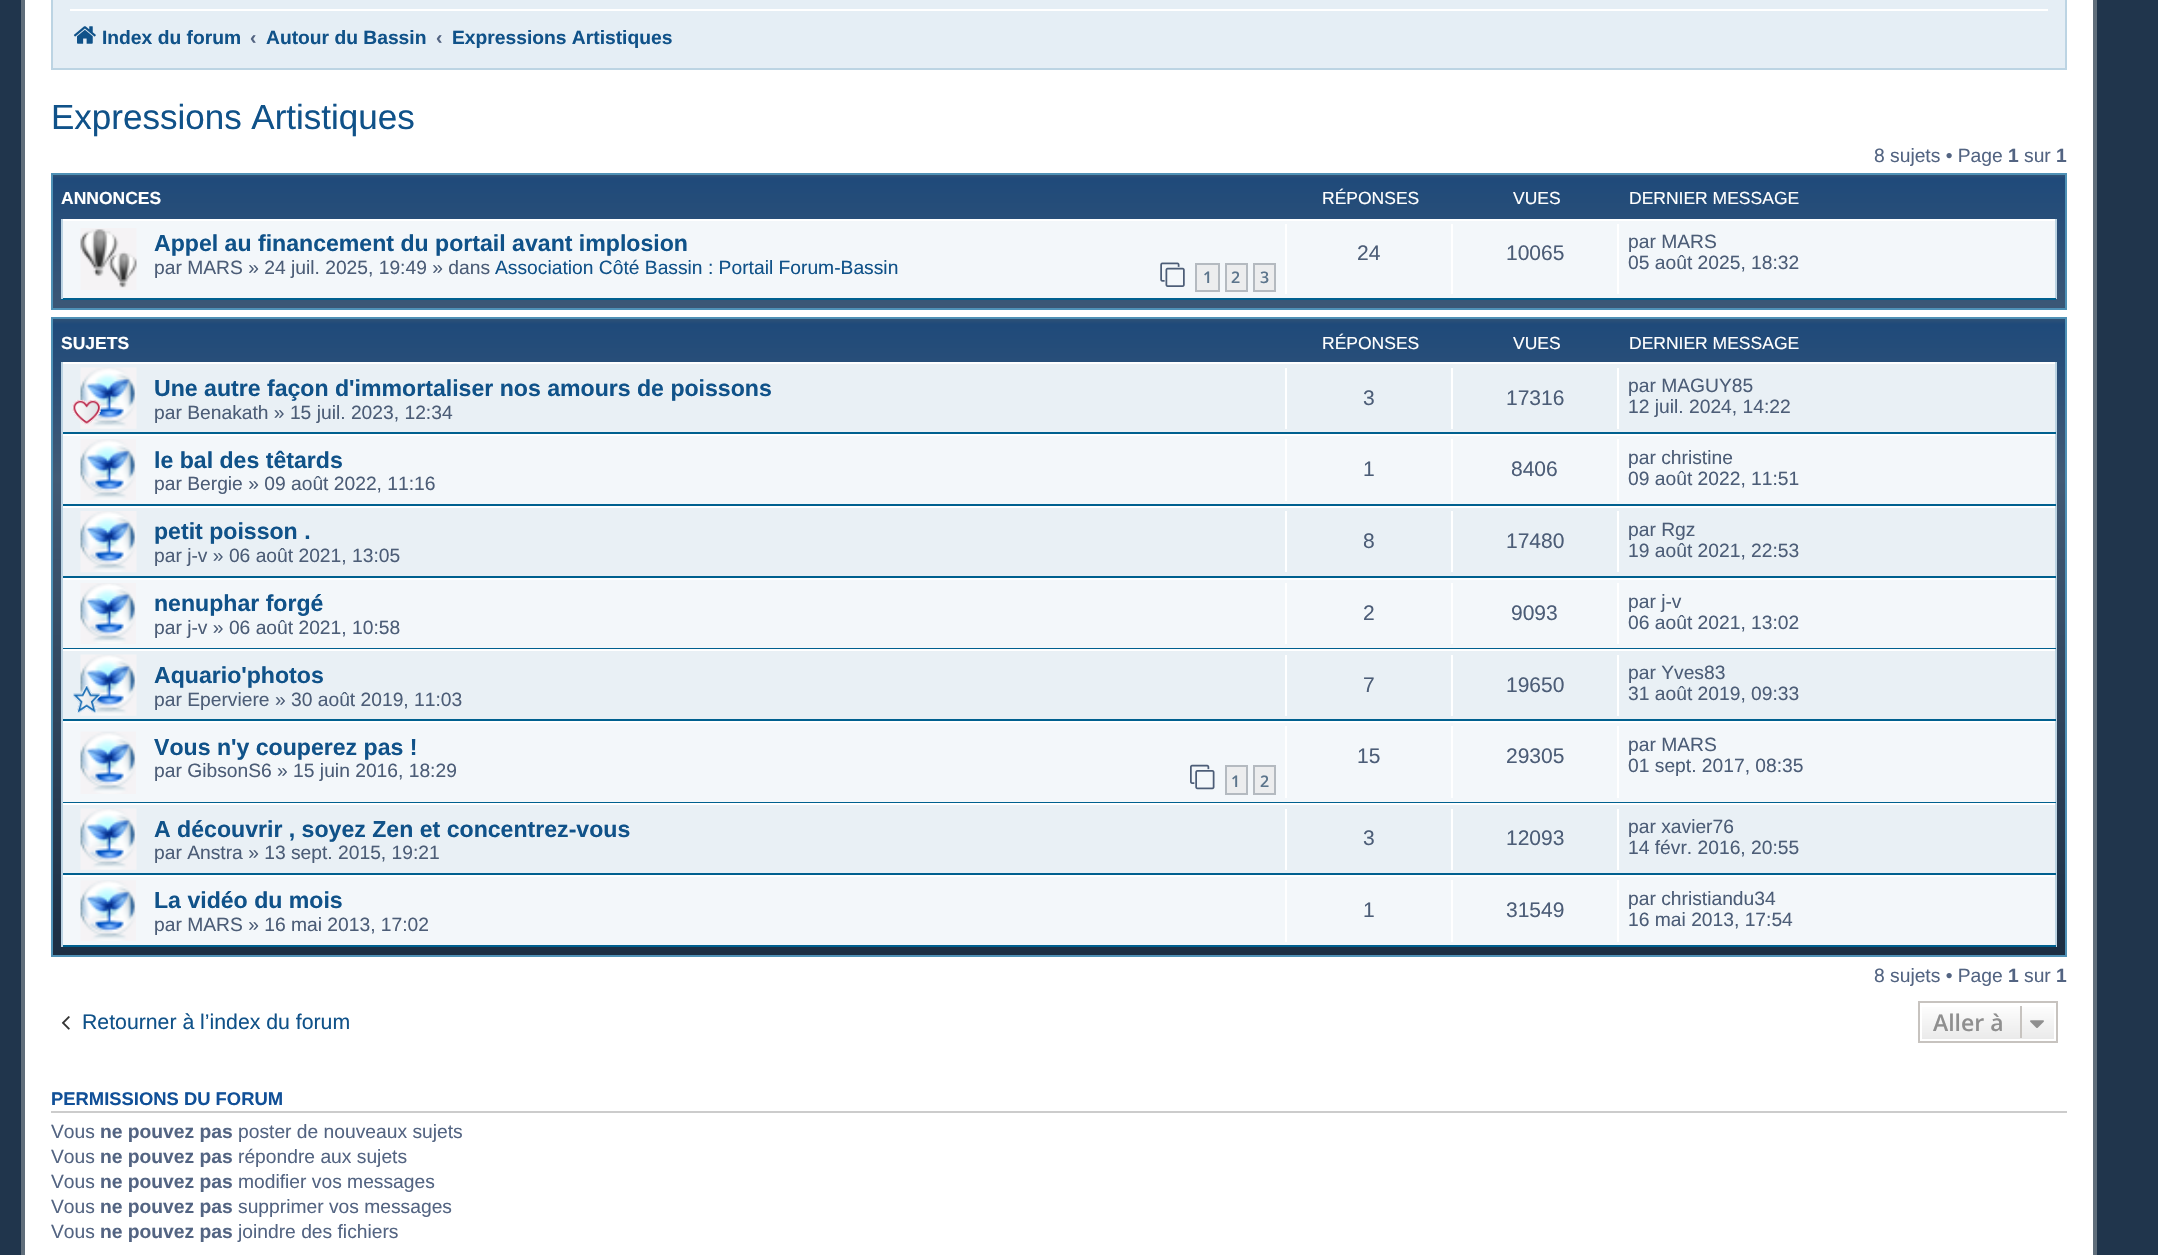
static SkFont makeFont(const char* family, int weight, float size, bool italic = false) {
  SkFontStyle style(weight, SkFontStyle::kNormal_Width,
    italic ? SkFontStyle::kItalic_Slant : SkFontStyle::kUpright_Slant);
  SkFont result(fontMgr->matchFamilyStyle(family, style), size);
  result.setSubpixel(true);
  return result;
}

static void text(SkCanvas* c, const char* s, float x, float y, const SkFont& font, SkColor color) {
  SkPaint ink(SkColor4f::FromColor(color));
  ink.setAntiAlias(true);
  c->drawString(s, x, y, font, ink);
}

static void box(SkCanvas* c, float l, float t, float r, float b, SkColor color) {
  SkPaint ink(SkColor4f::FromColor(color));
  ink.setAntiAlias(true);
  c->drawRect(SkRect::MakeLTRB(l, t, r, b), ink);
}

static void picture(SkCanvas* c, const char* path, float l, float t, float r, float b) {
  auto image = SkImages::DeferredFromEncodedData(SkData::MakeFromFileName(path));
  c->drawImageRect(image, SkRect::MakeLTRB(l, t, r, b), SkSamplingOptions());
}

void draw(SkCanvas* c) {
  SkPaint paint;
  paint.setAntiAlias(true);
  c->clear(0xff20354c);
  paint.setColor(0xffffffff);
  c->drawRect(SkRect::MakeLTRB(23, -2, 2095, 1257), paint);
  paint.setStyle(SkPaint::kStroke_Style);
  paint.setStrokeWidth(4);
  paint.setColor(0xff606e7b);
  c->drawRect(SkRect::MakeLTRB(23, -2, 2095, 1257), paint);
  paint.setStyle(SkPaint::kFill_Style);
  paint.setColor(0xffe5eef5);
  c->drawRect(SkRect::MakeLTRB(52, -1, 2066, 69), paint);
  paint.setStyle(SkPaint::kStroke_Style);
  paint.setStrokeWidth(2);
  paint.setColor(0xffbcd4e3);
  c->drawRect(SkRect::MakeLTRB(52, -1, 2066, 69), paint);
  box(c, 70, 9, 2048, 11, 0xffffffff);
  picture(c, "img_01.png", 73, 26, 96, 44);
  SkFont face1 = makeFont("Liberation Sans", 700, 19.25f);
  text(c, "Index du forum", 102, 44, face1, 0xff105289);
  text(c, "‹", 250, 44, face1, 0xff536482);
  text(c, "Autour du Bassin", 266, 44, face1, 0xff105289);
  text(c, "‹", 436, 44, face1, 0xff536482);
  text(c, "Expressions Artistiques", 452, 44, face1, 0xff105289);
  SkFont face2 = makeFont("Liberation Sans", 400, 35);
  text(c, "Expressions Artistiques", 51, 129, face2, 0xff105289);
  SkFont face3 = makeFont("Liberation Sans", 400, 19.25f);
  text(c, "8 sujets • Page", 1874, 162, face3, 0xff536482);
  text(c, "1", 2008, 162, face1, 0xff536482);
  text(c, "sur", 2024, 162, face3, 0xff536482);
  text(c, "1", 2056, 162, face1, 0xff536482);
  paint.setStyle(SkPaint::kFill_Style);
  {
    const SkColor colors[] = {0xff315275, 0xff1f4a7a, 0xff425a75, 0xff1c2e43};
    const float stops[] = {0, 0.02f, 1, 1};
    const SkPoint ends[] = {{1059, 175}, {1059, 336}};
    paint.setShader(SkGradientShader::MakeLinear(ends, colors, stops, 4, SkTileMode::kClamp));
    paint.setAlpha(255);
  }
  c->drawRect(SkRect::MakeLTRB(53, 175, 2065, 308), paint);
  paint.setStyle(SkPaint::kStroke_Style);
  paint.setShader(nullptr);
  paint.setColor(0xff4f91b6);
  c->drawRect(SkRect::MakeLTRB(52, 174, 2066, 309), paint);
  SkFont face4 = makeFont("Liberation Sans", 700, 17.5f);
  text(c, "ANNONCES", 61, 204, face4, 0xffffffff);
  SkFont face5 = makeFont("Liberation Sans", 400, 17.5f);
  text(c, "RÉPONSES", 1322, 204, face5, 0xffffffff);
  text(c, "VUES", 1513, 204, face5, 0xffffffff);
  text(c, "DERNIER MESSAGE", 1629, 204, face5, 0xffffffff);
  box(c, 63, 221, 2055, 298, 0xfff3f7fa);
  box(c, 61, 219, 2056, 221, 0xffffffff);
  box(c, 2055, 219, 2057, 299, 0xffbcd4e3);
  box(c, 61, 298, 2056, 300, 0xff00608f);
  box(c, 61, 219, 63, 299, 0xffbcd4e3);
  picture(c, "img_02.png", 80, 228, 137, 290);
  SkFont face6 = makeFont("Liberation Sans", 700, 23.1f);
  text(c, "Appel au financement du portail avant implosion", 154, 251, face6, 0xff105289);
  text(c, "par MARS » 24 juil. 2025, 19:49 » dans", 154, 274, face3, 0xff4c5d77);
  text(c, "Association Côté Bassin : Portail Forum-Bassin", 495, 274, face3, 0xff105289);
  picture(c, "img_03.png", 1160, 262, 1185, 287);
  paint.setStyle(SkPaint::kFill_Style);
  paint.setColor(0xffecedee);
  c->drawRect(SkRect::MakeLTRB(1196, 264, 1219, 291), paint);
  paint.setStyle(SkPaint::kStroke_Style);
  paint.setColor(0xffb4bac0);
  c->drawRect(SkRect::MakeLTRB(1196, 264, 1219, 291), paint);
  SkFont face7 = makeFont("Open Sans", 600, 16);
  text(c, "1", 1203, 283, face7, 0xff5c758c);
  paint.setStyle(SkPaint::kFill_Style);
  paint.setColor(0xffecedee);
  c->drawRect(SkRect::MakeLTRB(1226, 264, 1247, 291), paint);
  paint.setStyle(SkPaint::kStroke_Style);
  paint.setColor(0xffb4bac0);
  c->drawRect(SkRect::MakeLTRB(1226, 264, 1247, 291), paint);
  text(c, "2", 1231, 283, face7, 0xff5c758c);
  paint.setStyle(SkPaint::kFill_Style);
  paint.setColor(0xffecedee);
  c->drawRect(SkRect::MakeLTRB(1254, 264, 1275, 291), paint);
  paint.setStyle(SkPaint::kStroke_Style);
  paint.setColor(0xffb4bac0);
  c->drawRect(SkRect::MakeLTRB(1254, 264, 1275, 291), paint);
  text(c, "3", 1260, 283, face7, 0xff5c758c);
  box(c, 1285, 224, 1287, 294, 0xffffffff);
  SkFont face8 = makeFont("Liberation Sans", 400, 21);
  text(c, "24", 1357, 260, face8, 0xff4c5d77);
  box(c, 1451, 224, 1453, 294, 0xffffffff);
  text(c, "10065", 1506, 260, face8, 0xff4c5d77);
  box(c, 1617, 224, 1619, 294, 0xffffffff);
  text(c, "par MARS", 1628, 248, face3, 0xff4c5d77);
  text(c, "05 août 2025, 18:32", 1628, 269, face3, 0xff4c5d77);
  paint.setStyle(SkPaint::kFill_Style);
  {
    const SkColor colors[] = {0xff315275, 0xff1f4a7a, 0xff425a75, 0xff1c2e43};
    const float stops[] = {0, 0.01f, 0.25f, 1};
    const SkPoint ends[] = {{1059, 318}, {1059, 956}};
    paint.setShader(SkGradientShader::MakeLinear(ends, colors, stops, 4, SkTileMode::kClamp));
    paint.setAlpha(255);
  }
  c->drawRect(SkRect::MakeLTRB(53, 319, 2065, 955), paint);
  paint.setStyle(SkPaint::kStroke_Style);
  paint.setShader(nullptr);
  paint.setColor(0xff4f91b6);
  c->drawRect(SkRect::MakeLTRB(52, 318, 2066, 956), paint);
  text(c, "SUJETS", 61, 349, face4, 0xffffffff);
  text(c, "RÉPONSES", 1322, 349, face5, 0xffffffff);
  text(c, "VUES", 1513, 349, face5, 0xffffffff);
  text(c, "DERNIER MESSAGE", 1629, 349, face5, 0xffffffff);
  box(c, 63, 364, 2055, 432, 0xffe9f0f5);
  box(c, 61, 362, 2056, 364, 0xffffffff);
  box(c, 2055, 362, 2057, 434, 0xffbcd4e3);
  box(c, 61, 432, 2056, 434, 0xff00608f);
  box(c, 61, 362, 63, 434, 0xffbcd4e3);
  picture(c, "img_04.png", 80, 367, 137, 429);
  picture(c, "img_05.png", 72, 399, 101, 425);
  text(c, "Une autre façon d'immortaliser nos amours de poissons", 154, 396, face6, 0xff105289);
  text(c, "par Benakath » 15 juil. 2023, 12:34", 154, 419, face3, 0xff4c5d77);
  box(c, 1285, 368, 1287, 429, 0xffffffff);
  text(c, "3", 1363, 405, face8, 0xff4c5d77);
  box(c, 1451, 368, 1453, 429, 0xffffffff);
  text(c, "17316", 1506, 405, face8, 0xff4c5d77);
  box(c, 1617, 368, 1619, 429, 0xffffffff);
  text(c, "par MAGUY85", 1628, 392, face3, 0xff4c5d77);
  text(c, "12 juil. 2024, 14:22", 1628, 413, face3, 0xff4c5d77);
  box(c, 63, 436, 2055, 504, 0xfff3f7fa);
  box(c, 61, 434, 2056, 436, 0xffffffff);
  box(c, 2055, 434, 2057, 506, 0xffbcd4e3);
  box(c, 61, 504, 2056, 506, 0xff00608f);
  box(c, 61, 434, 63, 506, 0xffbcd4e3);
  picture(c, "img_06.png", 80, 439, 136, 500);
  text(c, "le bal des têtards", 154, 468, face6, 0xff105289);
  text(c, "par Bergie » 09 août 2022, 11:16", 154, 490, face3, 0xff4c5d77);
  box(c, 1285, 439, 1287, 501, 0xffffffff);
  text(c, "1", 1363, 476, face8, 0xff4c5d77);
  box(c, 1451, 439, 1453, 501, 0xffffffff);
  text(c, "8406", 1511, 476, face8, 0xff4c5d77);
  box(c, 1617, 439, 1619, 501, 0xffffffff);
  text(c, "par christine", 1628, 464, face3, 0xff4c5d77);
  text(c, "09 août 2022, 11:51", 1628, 485, face3, 0xff4c5d77);
  box(c, 63, 508, 2055, 576, 0xffe9f0f5);
  box(c, 61, 506, 2056, 508, 0xffffffff);
  box(c, 2055, 506, 2057, 578, 0xffbcd4e3);
  box(c, 61, 576, 2056, 578, 0xff00608f);
  box(c, 61, 506, 63, 578, 0xffbcd4e3);
  picture(c, "img_07.png", 80, 511, 137, 573);
  text(c, "petit poisson .", 154, 539, face6, 0xff105289);
  text(c, "par j-v » 06 août 2021, 13:05", 154, 562, face3, 0xff4c5d77);
  box(c, 1285, 511, 1287, 572, 0xffffffff);
  text(c, "8", 1363, 548, face8, 0xff4c5d77);
  box(c, 1451, 511, 1453, 572, 0xffffffff);
  text(c, "17480", 1506, 548, face8, 0xff4c5d77);
  box(c, 1617, 511, 1619, 572, 0xffffffff);
  text(c, "par Rgz", 1628, 536, face3, 0xff4c5d77);
  text(c, "19 août 2021, 22:53", 1628, 557, face3, 0xff4c5d77);
  box(c, 63, 580, 2055, 648, 0xfff3f7fa);
  box(c, 61, 578, 2056, 580, 0xffffffff);
  box(c, 2055, 578, 2057, 649, 0xffbcd4e3);
  box(c, 61, 648, 2056, 649, 0xff00608f);
  box(c, 61, 578, 63, 649, 0xffbcd4e3);
  picture(c, "img_08.png", 80, 583, 136, 644);
  text(c, "nenuphar forgé", 154, 611, face6, 0xff105289);
  text(c, "par j-v » 06 août 2021, 10:58", 154, 634, face3, 0xff4c5d77);
  box(c, 1285, 583, 1287, 644, 0xffffffff);
  text(c, "2", 1363, 620, face8, 0xff4c5d77);
  box(c, 1451, 583, 1453, 644, 0xffffffff);
  text(c, "9093", 1511, 620, face8, 0xff4c5d77);
  box(c, 1617, 583, 1619, 644, 0xffffffff);
  text(c, "par j-v", 1628, 608, face3, 0xff4c5d77);
  text(c, "06 août 2021, 13:02", 1628, 629, face3, 0xff4c5d77);
  box(c, 63, 651, 2055, 719, 0xffe9f0f5);
  box(c, 61, 649, 2056, 651, 0xffffffff);
  box(c, 2055, 649, 2057, 721, 0xffbcd4e3);
  box(c, 61, 719, 2056, 721, 0xff00608f);
  box(c, 61, 649, 63, 721, 0xffbcd4e3);
  picture(c, "img_04.png", 80, 654, 137, 716);
  picture(c, "img_09.png", 72, 685, 101, 713);
  text(c, "Aquario'photos", 154, 683, face6, 0xff105289);
  text(c, "par Eperviere » 30 août 2019, 11:03", 154, 706, face3, 0xff4c5d77);
  box(c, 1285, 655, 1287, 716, 0xffffffff);
  text(c, "7", 1363, 692, face8, 0xff4c5d77);
  box(c, 1451, 655, 1453, 716, 0xffffffff);
  text(c, "19650", 1506, 692, face8, 0xff4c5d77);
  box(c, 1617, 655, 1619, 716, 0xffffffff);
  text(c, "par Yves83", 1628, 679, face3, 0xff4c5d77);
  text(c, "31 août 2019, 09:33", 1628, 700, face3, 0xff4c5d77);
  box(c, 63, 723, 2055, 802, 0xfff3f7fa);
  box(c, 61, 721, 2056, 723, 0xffffffff);
  box(c, 2055, 721, 2057, 803, 0xffbcd4e3);
  box(c, 61, 802, 2056, 803, 0xff00608f);
  box(c, 61, 721, 63, 803, 0xffbcd4e3);
  picture(c, "img_10.png", 80, 731, 136, 794);
  text(c, "Vous n'y couperez pas !", 154, 755, face6, 0xff105289);
  text(c, "par GibsonS6 » 15 juin 2016, 18:29", 154, 777, face3, 0xff4c5d77);
  picture(c, "img_11.png", 1190, 764, 1215, 790);
  paint.setStyle(SkPaint::kFill_Style);
  paint.setColor(0xffecedee);
  c->drawRect(SkRect::MakeLTRB(1226, 766, 1247, 794), paint);
  paint.setStyle(SkPaint::kStroke_Style);
  paint.setColor(0xffb4bac0);
  c->drawRect(SkRect::MakeLTRB(1226, 766, 1247, 794), paint);
  text(c, "1", 1231, 787, face7, 0xff5c758c);
  paint.setStyle(SkPaint::kFill_Style);
  paint.setColor(0xffecedee);
  c->drawRect(SkRect::MakeLTRB(1254, 766, 1275, 794), paint);
  paint.setStyle(SkPaint::kStroke_Style);
  paint.setColor(0xffb4bac0);
  c->drawRect(SkRect::MakeLTRB(1254, 766, 1275, 794), paint);
  text(c, "2", 1260, 787, face7, 0xff5c758c);
  box(c, 1285, 726, 1287, 798, 0xffffffff);
  text(c, "15", 1357, 763, face8, 0xff4c5d77);
  box(c, 1451, 726, 1453, 798, 0xffffffff);
  text(c, "29305", 1506, 763, face8, 0xff4c5d77);
  box(c, 1617, 726, 1619, 798, 0xffffffff);
  text(c, "par MARS", 1628, 751, face3, 0xff4c5d77);
  text(c, "01 sept. 2017, 08:35", 1628, 772, face3, 0xff4c5d77);
  box(c, 63, 805, 2055, 873, 0xffe9f0f5);
  box(c, 61, 803, 2056, 805, 0xffffffff);
  box(c, 2055, 803, 2057, 875, 0xffbcd4e3);
  box(c, 61, 873, 2056, 875, 0xff00608f);
  box(c, 61, 803, 63, 875, 0xffbcd4e3);
  picture(c, "img_04.png", 80, 808, 137, 870);
  text(c, "A découvrir , soyez Zen et concentrez-vous", 154, 837, face6, 0xff105289);
  text(c, "par Anstra » 13 sept. 2015, 19:21", 154, 859, face3, 0xff4c5d77);
  box(c, 1285, 809, 1287, 870, 0xffffffff);
  text(c, "3", 1363, 845, face8, 0xff4c5d77);
  box(c, 1451, 809, 1453, 870, 0xffffffff);
  text(c, "12093", 1506, 845, face8, 0xff4c5d77);
  box(c, 1617, 809, 1619, 870, 0xffffffff);
  text(c, "par xavier76", 1628, 833, face3, 0xff4c5d77);
  text(c, "14 févr. 2016, 20:55", 1628, 854, face3, 0xff4c5d77);
  box(c, 63, 877, 2055, 945, 0xfff3f7fa);
  box(c, 61, 875, 2056, 877, 0xffffffff);
  box(c, 2055, 875, 2057, 947, 0xffbcd4e3);
  box(c, 61, 945, 2056, 947, 0xff00608f);
  box(c, 61, 875, 63, 947, 0xffbcd4e3);
  picture(c, "img_06.png", 80, 880, 136, 941);
  text(c, "La vidéo du mois", 154, 908, face6, 0xff105289);
  text(c, "par MARS » 16 mai 2013, 17:02", 154, 931, face3, 0xff4c5d77);
  box(c, 1285, 880, 1287, 942, 0xffffffff);
  text(c, "1", 1363, 917, face8, 0xff4c5d77);
  box(c, 1451, 880, 1453, 942, 0xffffffff);
  text(c, "31549", 1506, 917, face8, 0xff4c5d77);
  box(c, 1617, 880, 1619, 942, 0xffffffff);
  text(c, "par christiandu34", 1628, 905, face3, 0xff4c5d77);
  text(c, "16 mai 2013, 17:54", 1628, 926, face3, 0xff4c5d77);
  text(c, "8 sujets • Page", 1874, 982, face3, 0xff536482);
  text(c, "1", 2008, 982, face1, 0xff536482);
  text(c, "sur", 2024, 982, face3, 0xff536482);
  text(c, "1", 2056, 982, face1, 0xff536482);
  picture(c, "img_12.png", 61, 1016, 70, 1030);
  SkFont face9 = makeFont("Liberation Sans", 400, 21.25f);
  text(c, "Retourner à l’index du forum", 82, 1029, face9, 0xff105289);
  paint.setStyle(SkPaint::kFill_Style);
  {
    const SkColor colors[] = {0xffffffff, 0xffe9e9e9};
    const float stops[] = {0, 1};
    const SkPoint ends[] = {{1988, 1003}, {1988, 1041}};
    paint.setShader(SkGradientShader::MakeLinear(ends, colors, stops, 2, SkTileMode::kClamp));
    paint.setAlpha(255);
  }
  c->drawRect(SkRect::MakeLTRB(1922, 1007, 2054, 1039), paint);
  paint.setStyle(SkPaint::kStroke_Style);
  paint.setShader(nullptr);
  paint.setColor(0xffc7c3bf);
  c->drawRect(SkRect::MakeLTRB(1919, 1002, 2057, 1042), paint);
  SkFont face10 = makeFont("Open Sans", 600, 23);
  text(c, "Aller à", 1933, 1031, face10, 0xff8f8f8f);
  box(c, 2020, 1006, 2022, 1038, 0xffc7c3bf);
  picture(c, "img_13.png", 2030, 1020, 2044, 1028);
  box(c, 51, 1111, 2067, 1113, 0xffcccccc);
  SkFont face11 = makeFont("Liberation Sans", 700, 18.4f);
  text(c, "PERMISSIONS DU FORUM", 51, 1105, face11, 0xff115098);
  text(c, "Vous", 51, 1138, face3, 0xff536482);
  text(c, "ne pouvez pas", 100, 1138, face1, 0xff536482);
  text(c, "poster de nouveaux sujets", 238, 1138, face3, 0xff536482);
  text(c, "Vous", 51, 1163, face3, 0xff536482);
  text(c, "ne pouvez pas", 100, 1163, face1, 0xff536482);
  text(c, "répondre aux sujets", 238, 1163, face3, 0xff536482);
  text(c, "Vous", 51, 1188, face3, 0xff536482);
  text(c, "ne pouvez pas", 100, 1188, face1, 0xff536482);
  text(c, "modifier vos messages", 238, 1188, face3, 0xff536482);
  text(c, "Vous", 51, 1213, face3, 0xff536482);
  text(c, "ne pouvez pas", 100, 1213, face1, 0xff536482);
  text(c, "supprimer vos messages", 238, 1213, face3, 0xff536482);
  text(c, "Vous", 51, 1238, face3, 0xff536482);
  text(c, "ne pouvez pas", 100, 1238, face1, 0xff536482);
  text(c, "joindre des fichiers", 238, 1238, face3, 0xff536482);
}
